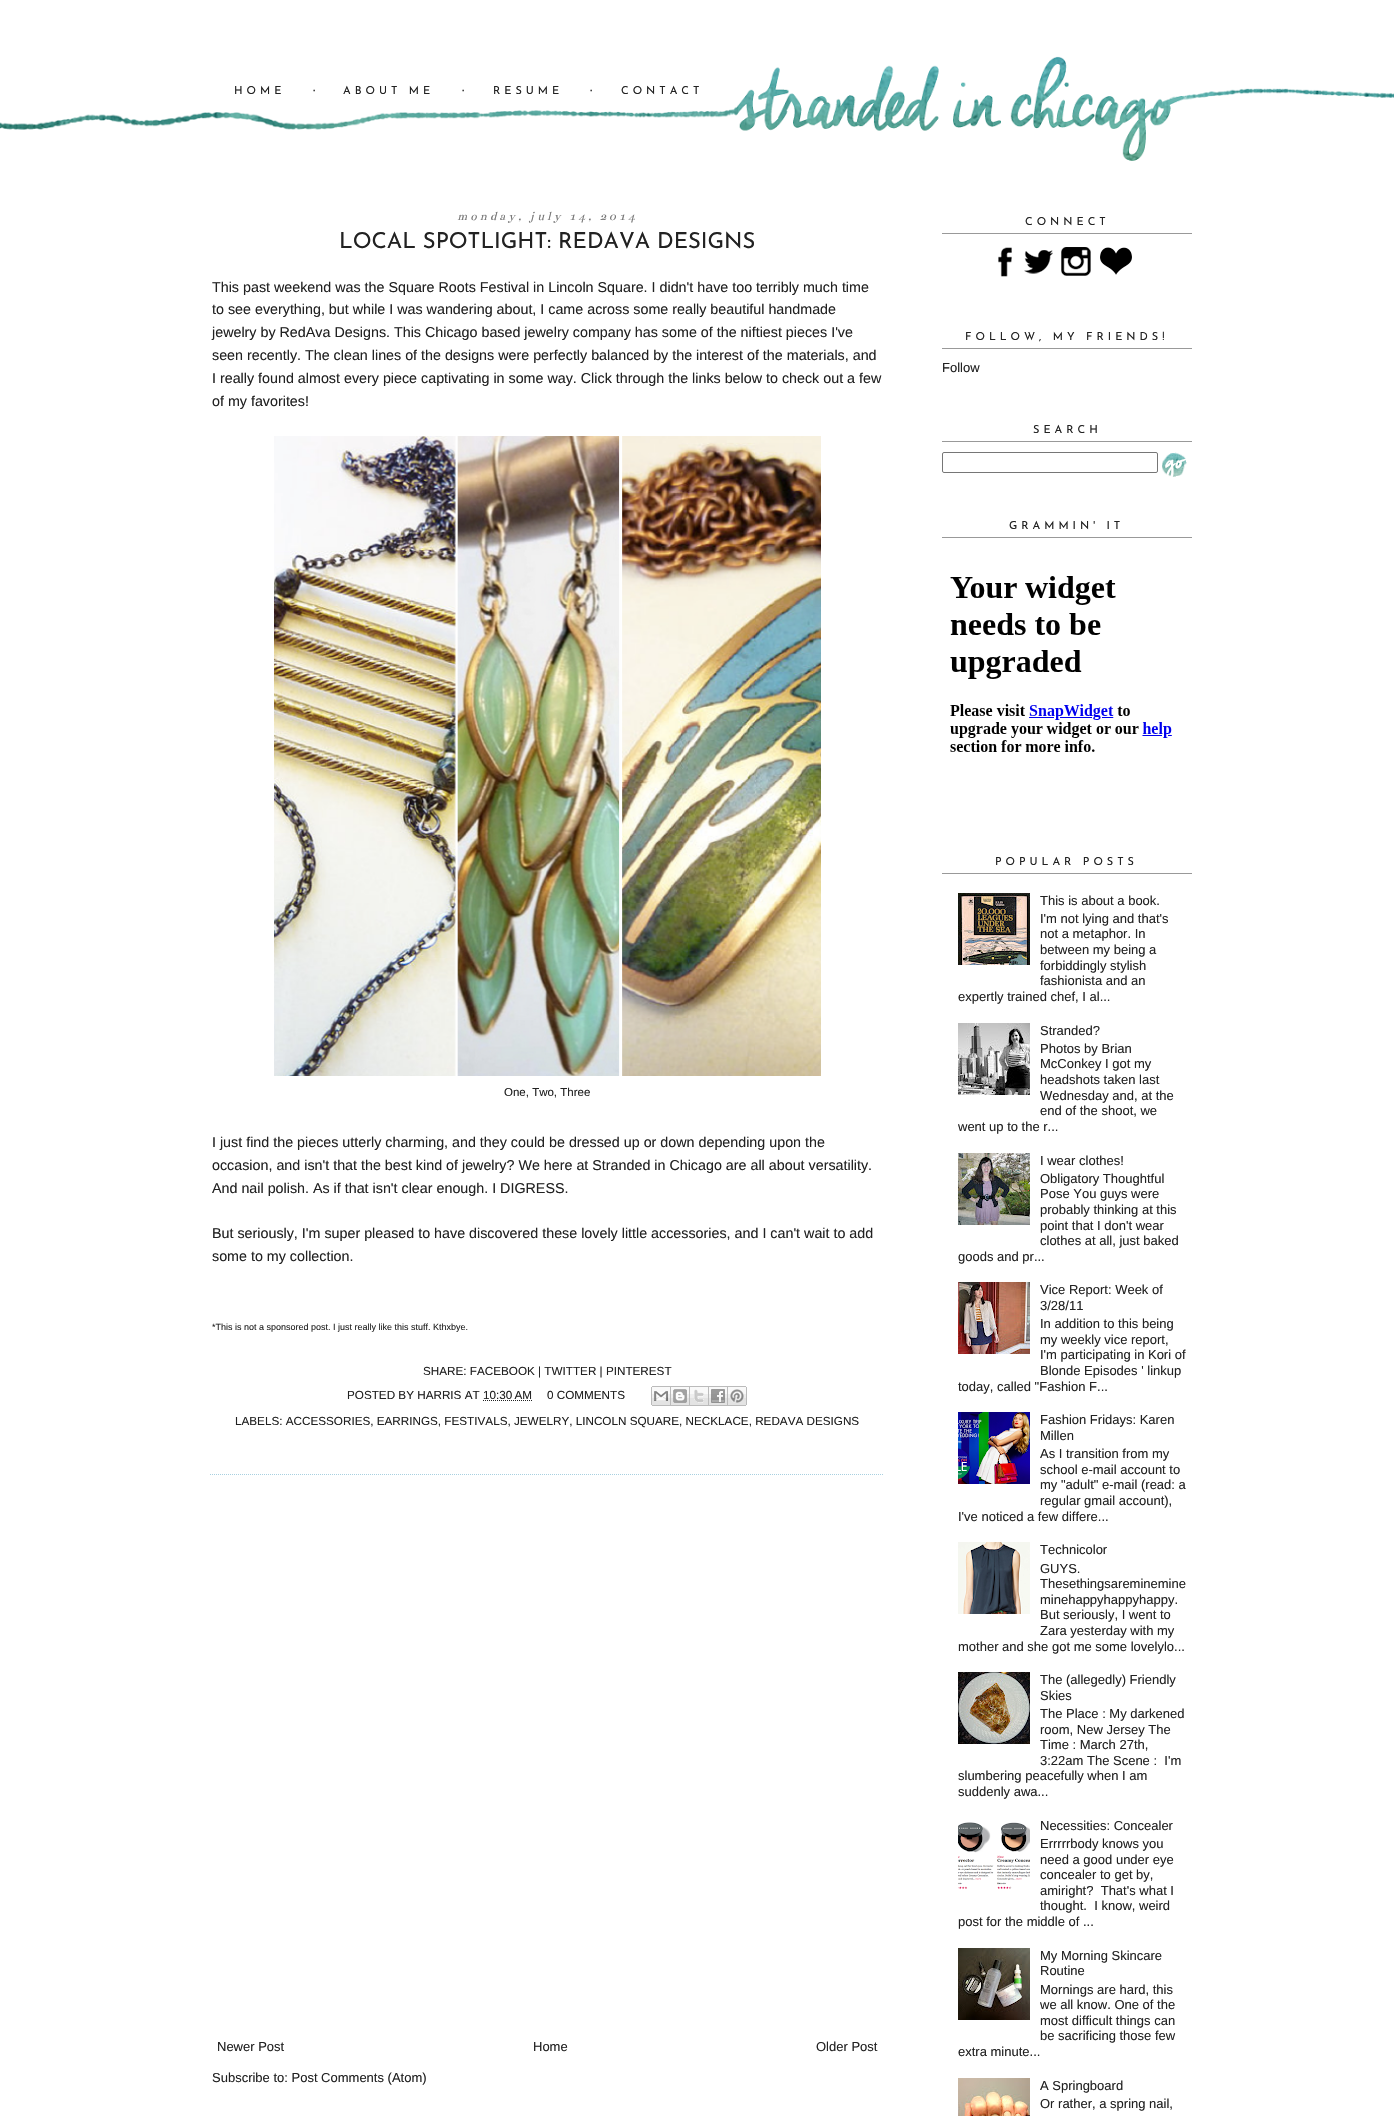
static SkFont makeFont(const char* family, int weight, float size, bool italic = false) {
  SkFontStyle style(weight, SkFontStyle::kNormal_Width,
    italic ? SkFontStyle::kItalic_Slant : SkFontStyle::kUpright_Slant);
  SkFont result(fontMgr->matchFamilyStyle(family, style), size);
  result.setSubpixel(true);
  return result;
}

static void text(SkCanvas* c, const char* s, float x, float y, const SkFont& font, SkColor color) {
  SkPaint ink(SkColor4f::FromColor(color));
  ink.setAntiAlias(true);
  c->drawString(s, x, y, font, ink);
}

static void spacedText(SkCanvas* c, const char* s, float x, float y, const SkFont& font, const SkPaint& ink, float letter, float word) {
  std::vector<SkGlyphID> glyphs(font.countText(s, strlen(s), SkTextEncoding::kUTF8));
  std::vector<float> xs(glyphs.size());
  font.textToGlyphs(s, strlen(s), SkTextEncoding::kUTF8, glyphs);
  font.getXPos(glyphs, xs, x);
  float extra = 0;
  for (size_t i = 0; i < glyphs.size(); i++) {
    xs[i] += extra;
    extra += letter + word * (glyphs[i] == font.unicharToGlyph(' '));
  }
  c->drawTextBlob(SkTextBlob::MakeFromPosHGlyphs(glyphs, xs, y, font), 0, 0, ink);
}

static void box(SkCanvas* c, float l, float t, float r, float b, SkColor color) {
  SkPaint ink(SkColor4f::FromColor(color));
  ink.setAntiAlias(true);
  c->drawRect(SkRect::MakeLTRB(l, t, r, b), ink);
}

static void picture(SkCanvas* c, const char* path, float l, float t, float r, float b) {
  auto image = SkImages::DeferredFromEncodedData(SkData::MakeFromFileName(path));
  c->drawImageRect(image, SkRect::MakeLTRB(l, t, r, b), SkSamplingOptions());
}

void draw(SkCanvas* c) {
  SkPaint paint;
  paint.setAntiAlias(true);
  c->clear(0xffffffff);
  picture(c, "img_01.png", 0, 56, 1394, 161);
  SkFont face1 = makeFont("Josefin Sans", 100, 11);
  paint.setColor(0xff222222);
  spacedText(c, "HOME", 234, 94, face1, paint, 4, 0);
  SkFont face2 = makeFont("Liberation Sans", 400, 13);
  text(c, "·", 312, 94, face2, 0xff222222);
  spacedText(c, "ABOUT ME", 343, 94, face1, paint, 4, 0);
  text(c, "·", 461, 94, face2, 0xff222222);
  spacedText(c, "RESUME", 493, 94, face1, paint, 4, 0);
  text(c, "·", 589, 94, face2, 0xff222222);
  spacedText(c, "CONTACT", 621, 94, face1, paint, 4, 0);
  SkFont face3 = makeFont("Bentham", 400, 13, true);
  paint.setColor(0xff777777);
  spacedText(c, "monday, july 14, 2014", 457, 220, face3, paint, 3, 0);
  SkFont face4 = makeFont("Josefin Sans", 100, 22);
  text(c, "LOCAL SPOTLIGHT: REDAVA DESIGNS", 339, 248, face4, 0xff222222);
  SkFont face5 = makeFont("Liberation Sans", 400, 14.3f);
  text(c, "This past weekend was the Square Roots Festival in Lincoln Square. I didn't have too terribly much time", 212, 292, face5, 0xff222222);
  text(c, "to see everything, but while I was wandering about, I came across some really beautiful handmade", 212, 314, face5, 0xff222222);
  text(c, "jewelry by RedAva Designs. This Chicago based jewelry company has some of the niftiest pieces I've", 212, 337, face5, 0xff222222);
  text(c, "seen recently. The clean lines of the designs were perfectly balanced by the interest of the materials, and", 212, 360, face5, 0xff222222);
  text(c, "I really found almost every piece captivating in some way. Click through the links below to check out a few", 212, 383, face5, 0xff222222);
  text(c, "of my favorites!", 212, 406, face5, 0xff222222);
  picture(c, "img_02.png", 274, 436, 821, 1076);
  SkFont face6 = makeFont("Liberation Sans", 400, 11.5f);
  text(c, "One, Two, Three", 504, 1096, face6, 0xff222222);
  text(c, "I just find the pieces utterly charming, and they could be dressed up or down depending upon the", 212, 1147, face5, 0xff222222);
  text(c, "occasion, and isn't that the best kind of jewelry? We here at Stranded in Chicago are all about versatility.", 212, 1170, face5, 0xff222222);
  text(c, "And nail polish. As if that isn't clear enough. I DIGRESS.", 212, 1193, face5, 0xff222222);
  text(c, "But seriously, I'm super pleased to have discovered these lovely little accessories, and I can't wait to add", 212, 1238, face5, 0xff222222);
  text(c, "some to my collection.", 212, 1261, face5, 0xff222222);
  SkFont face7 = makeFont("Liberation Sans", 400, 9);
  text(c, "*This is not a sponsored post. I just really like this stuff. Kthxbye.", 212, 1330, face7, 0xff222222);
  paint.setStyle(SkPaint::kStroke_Style);
  paint.setStrokeWidth(1);
  paint.setColor(0xffa8d0e0);
  paint.setPathEffect(SkDashPathEffect::Make({{1, 1}}, 0));
  c->drawPath(SkPathBuilder().moveTo(210, 1474.5f).lineTo(884, 1474.5f).detach(), paint);
  paint.setPathEffect(nullptr);
  SkFont face8 = makeFont("Liberation Sans", 400, 11.7f);
  text(c, "SHARE: FACEBOOK | TWITTER | PINTEREST", 423, 1375, face8, 0xff222222);
  text(c, "POSTED BY HARRIS AT 10:30 AM", 347, 1399, face8, 0xff222222);
  text(c, "0 COMMENTS", 547, 1399, face8, 0xff222222);
  picture(c, "img_03.png", 651, 1386, 671, 1406);
  picture(c, "img_04.png", 671, 1386, 690, 1406);
  picture(c, "img_05.png", 690, 1386, 709, 1406);
  picture(c, "img_06.png", 709, 1386, 728, 1406);
  picture(c, "img_07.png", 728, 1386, 747, 1406);
  paint.setColor(0xff222222);
  paint.setPathEffect(SkDashPathEffect::Make({{1, 1}}, 0));
  c->drawPath(SkPathBuilder().moveTo(483, 1400.5f).lineTo(532, 1400.5f).detach(), paint);
  paint.setPathEffect(nullptr);
  text(c, "LABELS: ACCESSORIES, EARRINGS, FESTIVALS, JEWELRY, LINCOLN SQUARE, NECKLACE, REDAVA DESIGNS", 235, 1425, face8, 0xff222222);
  text(c, "Newer Post", 217, 2051, face2, 0xff222222);
  text(c, "Home", 533, 2051, face2, 0xff222222);
  text(c, "Older Post", 816, 2051, face2, 0xff222222);
  text(c, "Subscribe to: Post Comments (Atom)", 212, 2082, face2, 0xff222222);
  box(c, 942, 233, 1192, 234, 0xff999999);
  paint.setStyle(SkPaint::kFill_Style);
  spacedText(c, "CONNECT", 1025, 225, face1, paint, 4, 0);
  picture(c, "img_08.png", 998, 247, 1012, 277);
  picture(c, "img_09.png", 1024, 250, 1053, 274);
  picture(c, "img_10.png", 1061, 247, 1091, 276);
  picture(c, "img_11.png", 1100, 247, 1132, 275);
  box(c, 942, 348, 1192, 349, 0xff999999);
  spacedText(c, "FOLLOW, MY FRIENDS!", 965, 340, face1, paint, 4, 0);
  text(c, "Follow", 942, 372, face2, 0xff222222);
  box(c, 942, 441, 1192, 442, 0xff999999);
  spacedText(c, "SEARCH", 1033, 433, face1, paint, 4, 0);
  paint.setStyle(SkPaint::kStroke_Style);
  paint.setColor(0xff767676);
  c->drawRoundRect(SkRect::MakeLTRB(942.5f, 452.5f, 1157.5f, 472.5f), 1.5f, 1.5f, paint);
  picture(c, "img_12.png", 1162, 452, 1187, 477);
  box(c, 942, 537, 1192, 538, 0xff999999);
  paint.setStyle(SkPaint::kFill_Style);
  paint.setColor(0xff222222);
  spacedText(c, "GRAMMIN' IT", 1009, 529, face1, paint, 4, 0);
  picture(c, "img_13.png", 950, 576, 1172, 752);
  box(c, 942, 873, 1192, 874, 0xff999999);
  spacedText(c, "POPULAR POSTS", 995, 865, face1, paint, 4, 0);
  picture(c, "img_14.png", 958, 893, 1030, 965);
  text(c, "This is about a book.", 1040, 905, face2, 0xff222222);
  text(c, "I'm not lying and that's", 1040, 923, face2, 0xff222222);
  text(c, "not a metaphor. In", 1040, 938, face2, 0xff222222);
  text(c, "between my being a", 1040, 954, face2, 0xff222222);
  text(c, "forbiddingly stylish", 1040, 970, face2, 0xff222222);
  text(c, "fashionista and an", 1040, 985, face2, 0xff222222);
  text(c, "expertly trained chef, I al...", 958, 1001, face2, 0xff222222);
  picture(c, "img_15.png", 958, 1023, 1030, 1095);
  text(c, "Stranded?", 1040, 1035, face2, 0xff222222);
  text(c, "Photos by Brian", 1040, 1053, face2, 0xff222222);
  text(c, "McConkey I got my", 1040, 1068, face2, 0xff222222);
  text(c, "headshots taken last", 1040, 1084, face2, 0xff222222);
  text(c, "Wednesday and, at the", 1040, 1100, face2, 0xff222222);
  text(c, "end of the shoot, we", 1040, 1115, face2, 0xff222222);
  text(c, "went up to the r...", 958, 1131, face2, 0xff222222);
  picture(c, "img_16.png", 958, 1153, 1030, 1225);
  text(c, "I wear clothes!", 1040, 1165, face2, 0xff222222);
  text(c, "Obligatory Thoughtful", 1040, 1183, face2, 0xff222222);
  text(c, "Pose You guys were", 1040, 1198, face2, 0xff222222);
  text(c, "probably thinking at this", 1040, 1214, face2, 0xff222222);
  text(c, "point that I don't wear", 1040, 1230, face2, 0xff222222);
  text(c, "clothes at all, just baked", 1040, 1245, face2, 0xff222222);
  text(c, "goods and pr...", 958, 1261, face2, 0xff222222);
  picture(c, "img_17.png", 958, 1282, 1030, 1354);
  text(c, "Vice Report: Week of", 1040, 1294, face2, 0xff222222);
  text(c, "3/28/11", 1040, 1310, face2, 0xff222222);
  text(c, "In addition to this being", 1040, 1328, face2, 0xff222222);
  text(c, "my weekly vice report,", 1040, 1344, face2, 0xff222222);
  text(c, "I'm participating in Kori of", 1040, 1359, face2, 0xff222222);
  text(c, "Blonde Episodes ' linkup", 1040, 1375, face2, 0xff222222);
  text(c, "today, called \"Fashion F...", 958, 1391, face2, 0xff222222);
  picture(c, "img_18.png", 958, 1412, 1030, 1484);
  text(c, "Fashion Fridays: Karen", 1040, 1424, face2, 0xff222222);
  text(c, "Millen", 1040, 1440, face2, 0xff222222);
  text(c, "As I transition from my", 1040, 1458, face2, 0xff222222);
  text(c, "school e-mail account to", 1040, 1474, face2, 0xff222222);
  text(c, "my \"adult\" e-mail (read: a", 1040, 1489, face2, 0xff222222);
  text(c, "regular gmail account),", 1040, 1505, face2, 0xff222222);
  text(c, "I've noticed a few differe...", 958, 1521, face2, 0xff222222);
  picture(c, "img_19.png", 958, 1542, 1030, 1614);
  text(c, "Technicolor", 1040, 1554, face2, 0xff222222);
  text(c, "GUYS.", 1040, 1573, face2, 0xff222222);
  text(c, "Thesethingsareminemine", 1040, 1588, face2, 0xff222222);
  text(c, "minehappyhappyhappy.", 1040, 1604, face2, 0xff222222);
  text(c, "But seriously, I went to", 1040, 1619, face2, 0xff222222);
  text(c, "Zara yesterday with my", 1040, 1635, face2, 0xff222222);
  text(c, "mother and she got me some lovelylo...", 958, 1651, face2, 0xff222222);
  picture(c, "img_20.png", 958, 1672, 1030, 1744);
  text(c, "The (allegedly) Friendly", 1040, 1684, face2, 0xff222222);
  text(c, "Skies", 1040, 1700, face2, 0xff222222);
  text(c, "The Place : My darkened", 1040, 1718, face2, 0xff222222);
  text(c, "room, New Jersey The", 1040, 1734, face2, 0xff222222);
  text(c, "Time : March 27th,", 1040, 1749, face2, 0xff222222);
  text(c, "3:22am The Scene :  I'm", 1040, 1765, face2, 0xff222222);
  text(c, "slumbering peacefully when I am", 958, 1780, face2, 0xff222222);
  text(c, "suddenly awa...", 958, 1796, face2, 0xff222222);
  picture(c, "img_21.png", 958, 1822, 1030, 1889);
  text(c, "Necessities: Concealer", 1040, 1830, face2, 0xff222222);
  text(c, "Errrrrbody knows you", 1040, 1848, face2, 0xff222222);
  text(c, "need a good under eye", 1040, 1864, face2, 0xff222222);
  text(c, "concealer to get by,", 1040, 1879, face2, 0xff222222);
  text(c, "amiright?  That's what I", 1040, 1895, face2, 0xff222222);
  text(c, "thought.  I know, weird", 1040, 1910, face2, 0xff222222);
  text(c, "post for the middle of ...", 958, 1926, face2, 0xff222222);
  picture(c, "img_22.png", 958, 1948, 1030, 2020);
  text(c, "My Morning Skincare", 1040, 1960, face2, 0xff222222);
  text(c, "Routine", 1040, 1975, face2, 0xff222222);
  text(c, "Mornings are hard, this", 1040, 1994, face2, 0xff222222);
  text(c, "we all know. One of the", 1040, 2009, face2, 0xff222222);
  text(c, "most difficult things can", 1040, 2025, face2, 0xff222222);
  text(c, "be sacrificing those few", 1040, 2040, face2, 0xff222222);
  text(c, "extra minute...", 958, 2056, face2, 0xff222222);
  picture(c, "img_23.png", 958, 2078, 1030, 2116);
  text(c, "A Springboard", 1040, 2090, face2, 0xff222222);
  text(c, "Or rather, a spring nail,", 1040, 2108, face2, 0xff222222);
}
